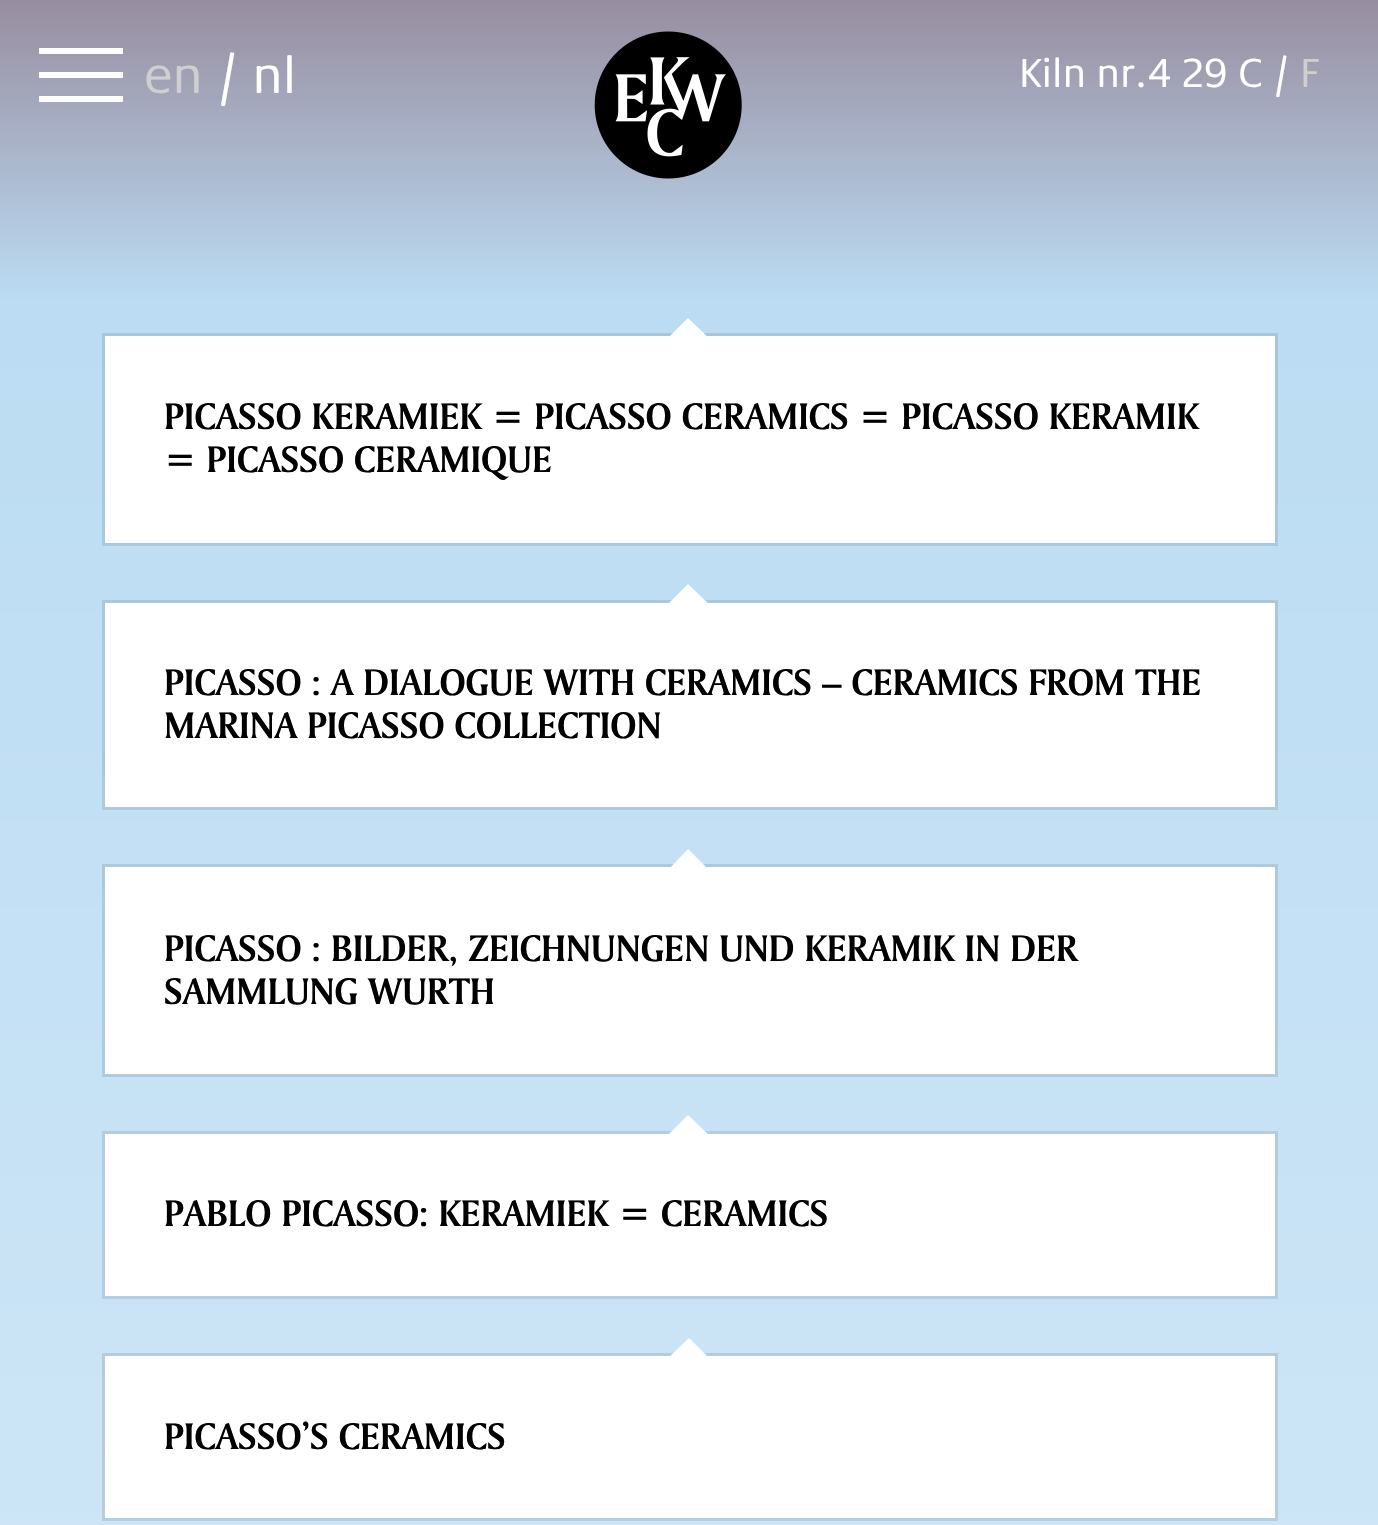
static SkFont makeFont(const char* family, int weight, float size, bool italic = false) {
  SkFontStyle style(weight, SkFontStyle::kNormal_Width,
    italic ? SkFontStyle::kItalic_Slant : SkFontStyle::kUpright_Slant);
  SkFont result(fontMgr->matchFamilyStyle(family, style), size);
  result.setSubpixel(true);
  return result;
}

static void text(SkCanvas* c, const char* s, float x, float y, const SkFont& font, SkColor color) {
  SkPaint ink(SkColor4f::FromColor(color));
  ink.setAntiAlias(true);
  c->drawString(s, x, y, font, ink);
}

static void box(SkCanvas* c, float l, float t, float r, float b, SkColor color) {
  SkPaint ink(SkColor4f::FromColor(color));
  ink.setAntiAlias(true);
  c->drawRect(SkRect::MakeLTRB(l, t, r, b), ink);
}

static void picture(SkCanvas* c, const char* path, float l, float t, float r, float b) {
  auto image = SkImages::DeferredFromEncodedData(SkData::MakeFromFileName(path));
  c->drawImageRect(image, SkRect::MakeLTRB(l, t, r, b), SkSamplingOptions());
}

void draw(SkCanvas* c) {
  SkPaint paint;
  paint.setAntiAlias(true);
  c->clear(0xffffffff);
  {
    const SkColor colors[] = {0xff988da0, 0xffbbdcf3, 0xffffffff};
    const float stops[] = {0, 0.03f, 0.5f};
    const SkPoint ends[] = {{690, 0}, {690, 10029}};
    paint.setShader(SkGradientShader::MakeLinear(ends, colors, stops, 3, SkTileMode::kClamp));
    paint.setAlpha(255);
  }
  c->drawRect(SkRect::MakeLTRB(0, 0, 1378, 1525), paint);
  box(c, 39, 72, 123, 78, 0xfffefefe);
  box(c, 39, 48, 123, 54, 0xfffefefe);
  box(c, 39, 96, 123, 102, 0xfffefefe);
  SkFont face1 = makeFont("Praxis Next", 400, 54);
  text(c, "en", 144, 93, face1, 0xffcfcfcf);
  text(c, "/ nl", 216, 93, face1, 0xffffffff);
  picture(c, "img_01.png", 594, 31, 742, 179);
  SkFont face2 = makeFont("Praxis Next", 400, 42);
  text(c, "Kiln nr.4 29 C /", 1019, 87, face2, 0xffffffff);
  text(c, "F", 1300, 87, face2, 0xffcfcfcf);
  paint.setStyle(SkPaint::kStroke_Style);
  paint.setStrokeWidth(3);
  paint.setShader(nullptr);
  paint.setColor(0x1a000000);
  c->drawRect(SkRect::MakeLTRB(103.5f, 334.5f, 1276.5f, 544.5f), paint);
  box(c, 105, 336, 1275, 543, 0xffffffff);
  paint.setStyle(SkPaint::kFill_Style);
  paint.setColor(0xffffffff);
  c->drawPath(SkPathBuilder().moveTo(688, 318).lineTo(710, 339).lineTo(688, 360).lineTo(667, 339).close().detach(), paint);
  SkFont face3 = makeFont("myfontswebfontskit", 700, 39);
  text(c, "PICASSO KERAMIEK = PICASSO CERAMICS = PICASSO KERAMIK", 164, 429, face3, 0xff000000);
  text(c, "= PICASSO CERAMIQUE", 164, 472, face3, 0xff000000);
  paint.setStyle(SkPaint::kStroke_Style);
  paint.setColor(0x1a000000);
  c->drawRect(SkRect::MakeLTRB(103.5f, 601.5f, 1276.5f, 808.5f), paint);
  box(c, 105, 603, 1275, 807, 0xffffffff);
  paint.setStyle(SkPaint::kFill_Style);
  paint.setColor(0xffffffff);
  c->drawPath(SkPathBuilder().moveTo(688, 584).lineTo(710, 605).lineTo(689, 626).lineTo(667, 605).close().detach(), paint);
  text(c, "PICASSO : A DIALOGUE WITH CERAMICS – CERAMICS FROM THE", 164, 695, face3, 0xff000000);
  text(c, "MARINA PICASSO COLLECTION", 164, 738, face3, 0xff000000);
  paint.setStyle(SkPaint::kStroke_Style);
  paint.setColor(0x1a000000);
  c->drawRect(SkRect::MakeLTRB(103.5f, 865.5f, 1276.5f, 1075.5f), paint);
  box(c, 105, 867, 1275, 1074, 0xffffffff);
  paint.setStyle(SkPaint::kFill_Style);
  paint.setColor(0xffffffff);
  c->drawPath(SkPathBuilder().moveTo(688, 849).lineTo(710, 871).lineTo(688, 892).lineTo(667, 871).close().detach(), paint);
  text(c, "PICASSO : BILDER, ZEICHNUNGEN UND KERAMIK IN DER", 164, 961, face3, 0xff000000);
  text(c, "SAMMLUNG WURTH", 164, 1004, face3, 0xff000000);
  paint.setStyle(SkPaint::kStroke_Style);
  paint.setColor(0xffb4ccdd);
  c->drawRect(SkRect::MakeLTRB(103.5f, 1132.5f, 1276.5f, 1297.5f), paint);
  box(c, 105, 1134, 1275, 1296, 0xffffffff);
  paint.setStyle(SkPaint::kFill_Style);
  paint.setColor(0xffffffff);
  c->drawPath(SkPathBuilder().moveTo(688, 1115).lineTo(710, 1136).lineTo(689, 1158).lineTo(667, 1136).close().detach(), paint);
  text(c, "PABLO PICASSO: KERAMIEK = CERAMICS", 164, 1226, face3, 0xff000000);
  paint.setStyle(SkPaint::kStroke_Style);
  paint.setColor(0x1a000000);
  c->drawRect(SkRect::MakeLTRB(103.5f, 1354.5f, 1276.5f, 1519.5f), paint);
  box(c, 105, 1356, 1275, 1518, 0xffffffff);
  paint.setStyle(SkPaint::kFill_Style);
  paint.setColor(0xffffffff);
  c->drawPath(SkPathBuilder().moveTo(689, 1338).lineTo(710, 1359).lineTo(689, 1381).lineTo(667, 1359).close().detach(), paint);
  text(c, "PICASSO’S CERAMICS", 164, 1449, face3, 0xff000000);
}
